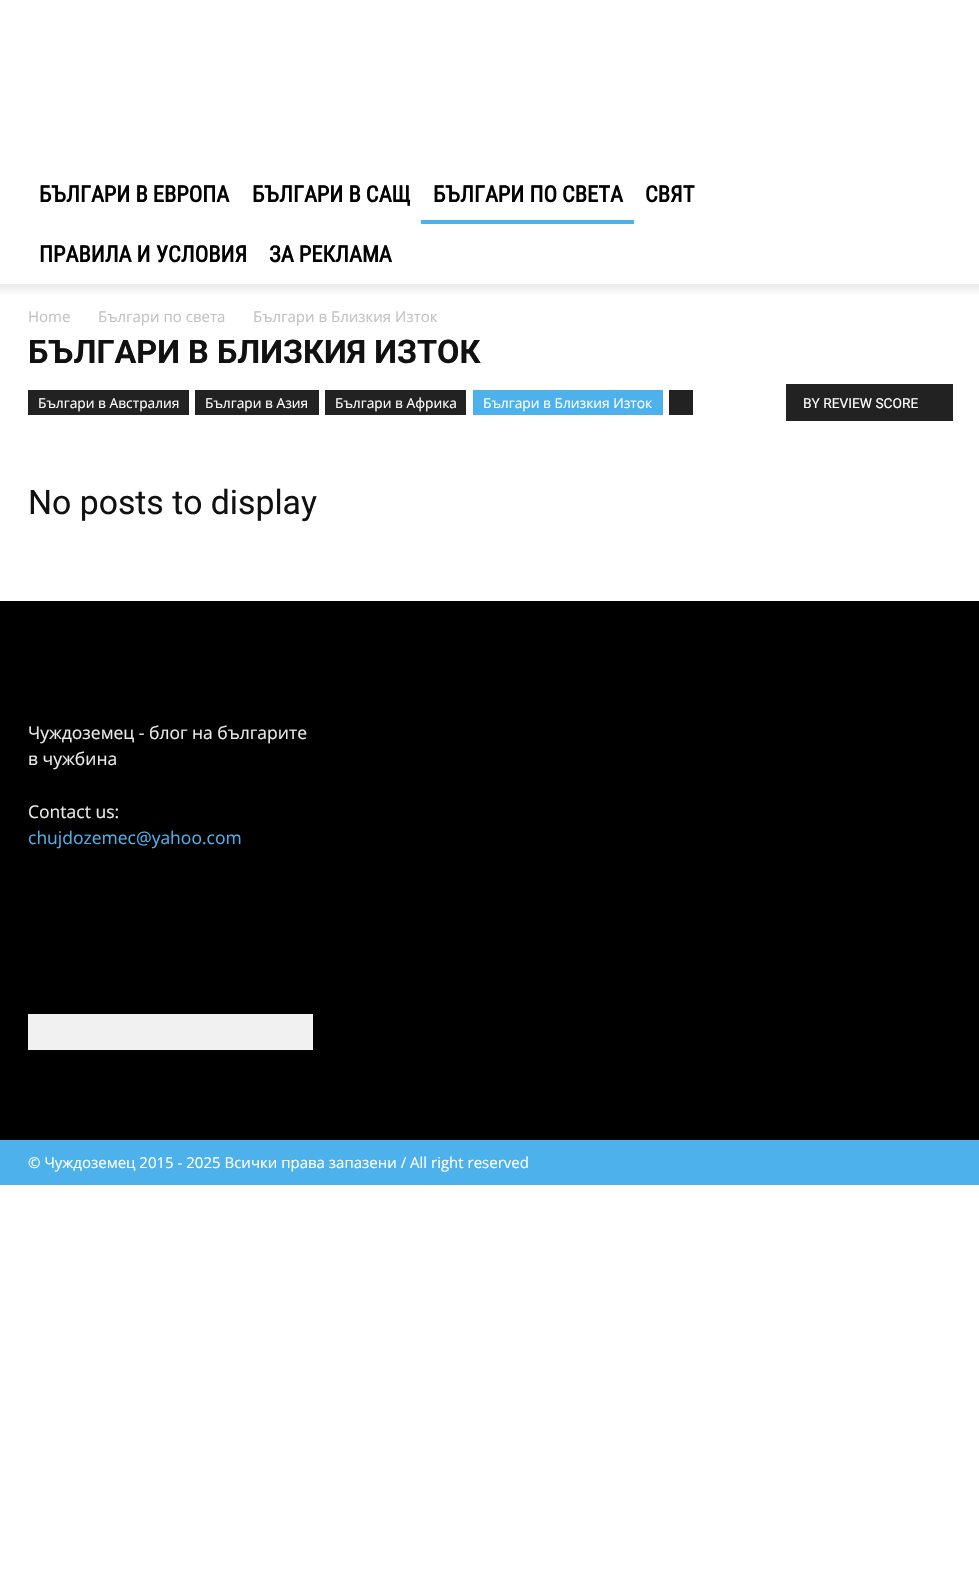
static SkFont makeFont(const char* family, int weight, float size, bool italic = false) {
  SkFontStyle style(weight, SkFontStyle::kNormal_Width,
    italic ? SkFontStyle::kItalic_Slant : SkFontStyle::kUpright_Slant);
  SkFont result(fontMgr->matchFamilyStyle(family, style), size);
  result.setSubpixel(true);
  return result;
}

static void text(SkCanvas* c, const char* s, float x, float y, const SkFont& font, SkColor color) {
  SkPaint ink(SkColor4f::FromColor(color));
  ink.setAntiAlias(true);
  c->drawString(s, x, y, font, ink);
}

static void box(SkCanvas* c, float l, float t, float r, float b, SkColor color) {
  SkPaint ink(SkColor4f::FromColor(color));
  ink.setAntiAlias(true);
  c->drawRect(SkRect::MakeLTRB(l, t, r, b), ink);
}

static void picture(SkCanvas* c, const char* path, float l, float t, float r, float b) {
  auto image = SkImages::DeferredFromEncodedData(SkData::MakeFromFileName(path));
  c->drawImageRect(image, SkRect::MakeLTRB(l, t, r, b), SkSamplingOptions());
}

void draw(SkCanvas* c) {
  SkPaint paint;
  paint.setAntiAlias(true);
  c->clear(0xffffffff);
  SkFont face1 = makeFont("Roboto Condensed", 700, 22.5f);
  text(c, "БЪЛГАРИ В ЕВРОПА", 39, 202, face1, 0xff000000);
  text(c, "БЪЛГАРИ В САЩ", 252, 202, face1, 0xff000000);
  text(c, "БЪЛГАРИ ПО СВЕТА", 433, 202, face1, 0xff000000);
  box(c, 421, 220, 634, 224, 0xff4db2ec);
  text(c, "СВЯТ", 645, 202, face1, 0xff000000);
  text(c, "ПРАВИЛА И УСЛОВИЯ", 39, 262, face1, 0xff000000);
  text(c, "ЗА РЕКЛАМА", 269, 262, face1, 0xff000000);
  picture(c, "img_01.png", 0, 284, 979, 294);
  SkFont face2 = makeFont("Open Sans", 400, 15);
  text(c, "Home", 28, 322, face2, 0xffc3c3c3);
  text(c, "Българи по света", 98, 322, face2, 0xffc3c3c3);
  text(c, "Българи в Близкия Изток", 253, 322, face2, 0xffc3c3c3);
  SkFont face3 = makeFont("Roboto", 700, 32.5f);
  text(c, "БЪЛГАРИ В БЛИЗКИЯ ИЗТОК", 28, 363, face3, 0xff111111);
  box(c, 28, 390, 189, 415, 0xff222222);
  SkFont face4 = makeFont("Open Sans", 400, 13.75f);
  text(c, "Българи в Австралия", 38, 408, face4, 0xffffffff);
  box(c, 195, 390, 319, 415, 0xff222222);
  text(c, "Българи в Азия", 205, 408, face4, 0xffffffff);
  box(c, 325, 390, 466, 415, 0xff222222);
  text(c, "Българи в Африка", 335, 408, face4, 0xffffffff);
  box(c, 473, 390, 663, 415, 0xff4db2ec);
  text(c, "Българи в Близкия Изток", 483, 408, face4, 0xffffffff);
  box(c, 669, 390, 693, 415, 0xff222222);
  box(c, 786, 384, 953, 421, 0xff222222);
  SkFont face5 = makeFont("Roboto", 400, 13.75f);
  text(c, "BY REVIEW SCORE", 803, 408, face5, 0xffffffff);
  SkFont face6 = makeFont("Roboto", 400, 33.75f);
  text(c, "No posts to display", 28, 514, face6, 0xff111111);
  box(c, 0, 601, 979, 1140, 0xff000000);
  SkFont face7 = makeFont("Open Sans", 400, 17.5f);
  text(c, "Чуждоземец - блог на българите", 28, 739, face7, 0xffeaeaea);
  text(c, "в чужбина", 28, 765, face7, 0xffeaeaea);
  text(c, "Contact us:", 28, 818, face7, 0xffeaeaea);
  text(c, "chujdozemec@yahoo.com", 28, 844, face7, 0xff4db2ec);
  box(c, 28, 1014, 313, 1050, 0xfff1f1f1);
  box(c, 0, 1140, 979, 1185, 0xff4db2ec);
  text(c, "© Чуждоземец 2015 - 2025 Всички права запазени / All right reserved", 28, 1168, face2, 0xffffffff);
}
